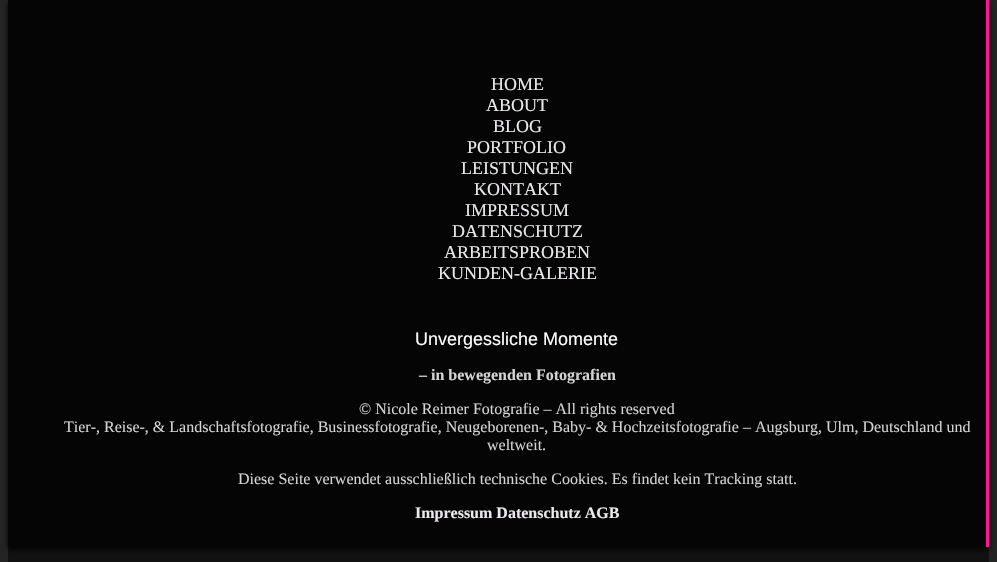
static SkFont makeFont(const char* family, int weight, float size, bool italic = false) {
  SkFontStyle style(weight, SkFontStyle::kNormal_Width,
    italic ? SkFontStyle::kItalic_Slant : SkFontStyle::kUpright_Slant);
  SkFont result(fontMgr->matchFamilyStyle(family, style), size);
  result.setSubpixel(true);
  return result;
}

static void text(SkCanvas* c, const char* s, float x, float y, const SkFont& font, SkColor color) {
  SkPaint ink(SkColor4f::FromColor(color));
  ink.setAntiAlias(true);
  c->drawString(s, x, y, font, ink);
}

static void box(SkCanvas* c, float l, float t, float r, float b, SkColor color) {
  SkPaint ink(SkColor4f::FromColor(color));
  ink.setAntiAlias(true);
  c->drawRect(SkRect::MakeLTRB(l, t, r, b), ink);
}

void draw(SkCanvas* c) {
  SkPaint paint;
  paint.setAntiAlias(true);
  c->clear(0xff242424);
  paint.setColor(0xff000000);
  paint.setMaskFilter(SkMaskFilter::MakeBlur(kNormal_SkBlurStyle, 2.5f));
  c->drawRect(SkRect::MakeLTRB(8, 2, 989, 549), paint);
  paint.setMaskFilter(nullptr);
  box(c, 8, 0, 986, 547, 0xff050505);
  box(c, 986, 0, 989, 547, 0xffff1493);
  SkFont face1 = makeFont("Liberation Serif", 400, 18);
  text(c, "HOME", 491, 90, face1, 0xffebe8eb);
  text(c, "ABOUT", 486, 111, face1, 0xffebe8eb);
  text(c, "BLOG", 493, 132, face1, 0xffebe8eb);
  text(c, "PORTFOLIO", 467, 153, face1, 0xffebe8eb);
  text(c, "LEISTUNGEN", 461, 174, face1, 0xffebe8eb);
  text(c, "KONTAKT", 474, 195, face1, 0xffebe8eb);
  text(c, "IMPRESSUM", 465, 216, face1, 0xffebe8eb);
  text(c, "DATENSCHUTZ", 452, 237, face1, 0xffebe8eb);
  text(c, "ARBEITSPROBEN", 444, 258, face1, 0xffebe8eb);
  text(c, "KUNDEN-GALERIE", 438, 279, face1, 0xffebe8eb);
  SkFont face2 = makeFont("Liberation Sans", 400, 18);
  text(c, "Unvergessliche Momente", 415, 345, face2, 0xffffffff);
  SkFont face3 = makeFont("Liberation Serif", 700, 16);
  text(c, "– in bewegenden Fotografien", 419, 380, face3, 0xffd3d3d3);
  SkFont face4 = makeFont("Liberation Serif", 400, 16);
  text(c, "© Nicole Reimer Fotografie – All rights reserved", 359, 414, face4, 0xffd3d3d3);
  text(c, "Tier-, Reise-, & Landschaftsfotografie, Businessfotografie, Neugeborenen-, Baby- & Hochzeitsfotografie – Augsburg, Ulm, Deutschland und", 64, 432, face4, 0xffd3d3d3);
  text(c, "weltweit.", 487, 450, face4, 0xffd3d3d3);
  text(c, "Diese Seite verwendet ausschließlich technische Cookies. Es findet kein Tracking statt.", 238, 484, face4, 0xffd3d3d3);
  text(c, "Impressum Datenschutz AGB", 415, 518, face3, 0xffebe8eb);
  box(c, 8, 547, 989, 562, 0x8c000000);
}
